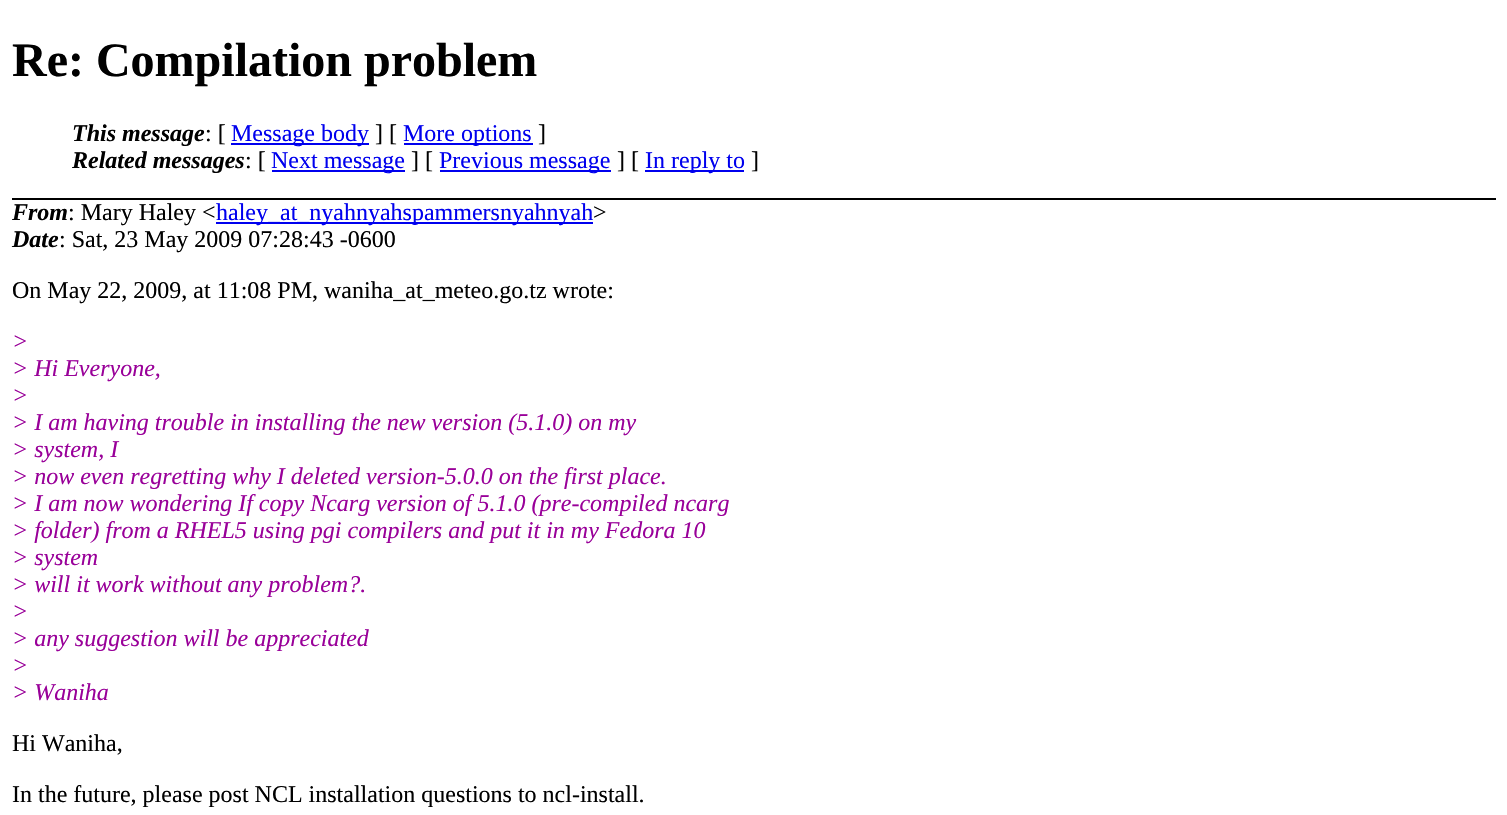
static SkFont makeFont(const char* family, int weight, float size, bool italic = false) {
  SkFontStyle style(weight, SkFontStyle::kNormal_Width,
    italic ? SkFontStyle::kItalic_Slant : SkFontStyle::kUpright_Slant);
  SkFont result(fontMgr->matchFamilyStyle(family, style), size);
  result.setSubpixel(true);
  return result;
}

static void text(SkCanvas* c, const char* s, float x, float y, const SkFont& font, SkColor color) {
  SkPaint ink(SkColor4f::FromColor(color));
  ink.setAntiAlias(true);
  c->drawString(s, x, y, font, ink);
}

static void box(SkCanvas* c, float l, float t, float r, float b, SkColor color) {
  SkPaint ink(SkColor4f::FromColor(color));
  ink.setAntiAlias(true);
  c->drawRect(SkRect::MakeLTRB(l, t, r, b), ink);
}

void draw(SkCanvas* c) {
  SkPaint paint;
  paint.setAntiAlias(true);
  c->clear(0xffffffff);
  box(c, 12, 198, 1496, 200, 0xff000000);
  SkFont face1 = makeFont("Liberation Serif", 700, 48);
  text(c, "Re: Compilation problem", 12, 76, face1, 0xff000000);
  SkFont face2 = makeFont("Liberation Serif", 700, 24, true);
  text(c, "This message", 72, 141, face2, 0xff000000);
  SkFont face3 = makeFont("Liberation Serif", 400, 24);
  text(c, ": [", 205, 141, face3, 0xff000000);
  box(c, 231, 143, 369, 145, 0xff0000ee);
  text(c, "Message body", 231, 141, face3, 0xff0000ee);
  text(c, "] [", 375, 141, face3, 0xff000000);
  box(c, 404, 143, 533, 145, 0xff0000ee);
  text(c, "More options", 403, 141, face3, 0xff0000ee);
  text(c, "]", 538, 141, face3, 0xff000000);
  text(c, "Related messages", 72, 168, face2, 0xff000000);
  text(c, ": [", 245, 168, face3, 0xff000000);
  box(c, 272, 170, 405, 172, 0xff0000ee);
  text(c, "Next message", 271, 168, face3, 0xff0000ee);
  text(c, "] [", 411, 168, face3, 0xff000000);
  box(c, 440, 170, 611, 172, 0xff0000ee);
  text(c, "Previous message", 439, 168, face3, 0xff0000ee);
  text(c, "] [", 617, 168, face3, 0xff000000);
  box(c, 645, 170, 744, 172, 0xff0000ee);
  text(c, "In reply to", 645, 168, face3, 0xff0000ee);
  text(c, "]", 751, 168, face3, 0xff000000);
  text(c, "From", 12, 220, face2, 0xff000000);
  text(c, ": Mary Haley <", 68, 220, face3, 0xff000000);
  box(c, 216, 222, 593, 224, 0xff0000ee);
  text(c, "haley_at_nyahnyahspammersnyahnyah", 216, 220, face3, 0xff0000ee);
  text(c, ">", 593, 220, face3, 0xff000000);
  text(c, "Date", 12, 247, face2, 0xff000000);
  text(c, ": Sat, 23 May 2009 07:28:43 -0600", 59, 247, face3, 0xff000000);
  text(c, "On May 22, 2009, at 11:08 PM, waniha_at_meteo.go.tz wrote:", 12, 298, face3, 0xff000000);
  SkFont face4 = makeFont("Liberation Serif", 400, 24, true);
  text(c, ">", 12, 349, face4, 0xff990099);
  text(c, "> Hi Everyone,", 12, 376, face4, 0xff990099);
  text(c, ">", 12, 403, face4, 0xff990099);
  text(c, "> I am having trouble in installing the new version (5.1.0) on my", 12, 430, face4, 0xff990099);
  text(c, "> system, I", 12, 457, face4, 0xff990099);
  text(c, "> now even regretting why I deleted version-5.0.0 on the first place.", 12, 484, face4, 0xff990099);
  text(c, "> I am now wondering If copy Ncarg version of 5.1.0 (pre-compiled ncarg", 12, 511, face4, 0xff990099);
  text(c, "> folder) from a RHEL5 using pgi compilers and put it in my Fedora 10", 12, 538, face4, 0xff990099);
  text(c, "> system", 12, 565, face4, 0xff990099);
  text(c, "> will it work without any problem?.", 12, 592, face4, 0xff990099);
  text(c, ">", 12, 619, face4, 0xff990099);
  text(c, "> any suggestion will be appreciated", 12, 646, face4, 0xff990099);
  text(c, ">", 12, 673, face4, 0xff990099);
  text(c, "> Waniha", 12, 700, face4, 0xff990099);
  text(c, "Hi Waniha,", 12, 751, face3, 0xff000000);
  text(c, "In the future, please post NCL installation questions to ncl-install.", 12, 802, face3, 0xff000000);
}
